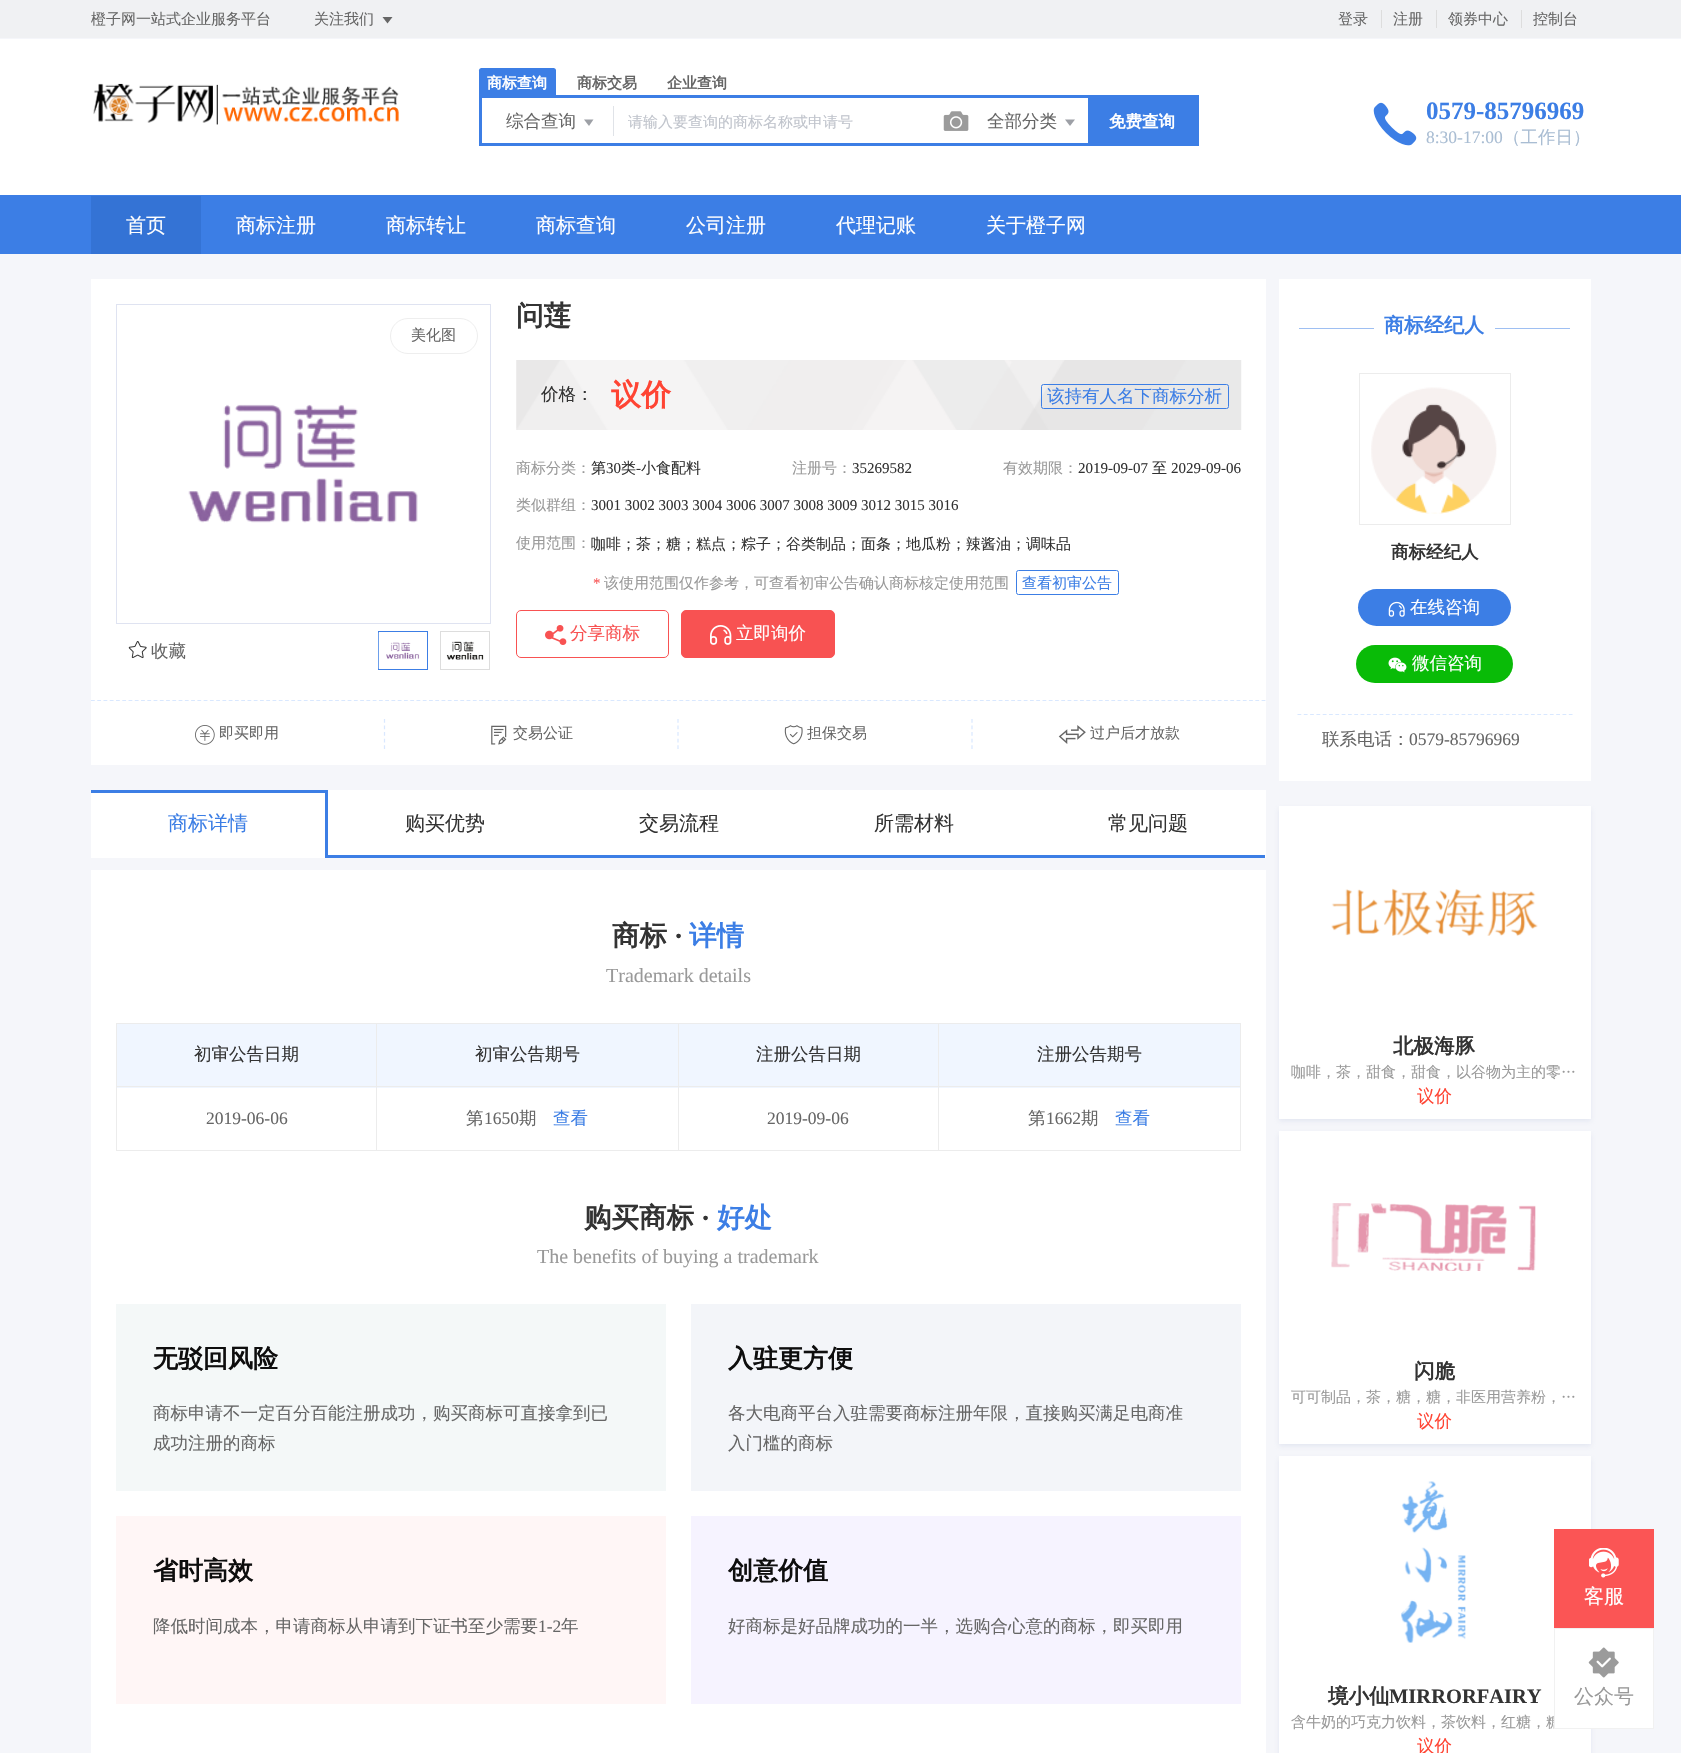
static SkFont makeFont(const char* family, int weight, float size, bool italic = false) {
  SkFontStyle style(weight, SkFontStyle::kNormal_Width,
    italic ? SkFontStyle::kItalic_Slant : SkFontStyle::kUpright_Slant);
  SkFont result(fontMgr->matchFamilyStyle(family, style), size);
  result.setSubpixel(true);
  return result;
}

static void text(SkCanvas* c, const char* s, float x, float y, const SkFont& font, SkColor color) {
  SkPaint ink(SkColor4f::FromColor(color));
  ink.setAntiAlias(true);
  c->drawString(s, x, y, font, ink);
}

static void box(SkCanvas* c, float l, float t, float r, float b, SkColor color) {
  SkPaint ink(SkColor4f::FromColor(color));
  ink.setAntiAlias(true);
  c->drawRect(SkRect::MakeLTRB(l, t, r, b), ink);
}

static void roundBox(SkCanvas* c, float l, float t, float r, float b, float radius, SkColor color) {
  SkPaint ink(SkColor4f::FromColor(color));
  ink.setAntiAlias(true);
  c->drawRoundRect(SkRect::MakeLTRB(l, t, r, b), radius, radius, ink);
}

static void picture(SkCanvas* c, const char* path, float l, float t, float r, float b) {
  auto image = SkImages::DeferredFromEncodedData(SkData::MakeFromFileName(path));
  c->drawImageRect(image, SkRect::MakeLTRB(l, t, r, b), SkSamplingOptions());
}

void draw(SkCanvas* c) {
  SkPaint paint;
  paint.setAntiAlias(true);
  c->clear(0xfff5f6fa);
  box(c, 0, 0, 1681, 38, 0xfff0f1f3);
  SkFont face1 = makeFont("WenQuanYi Zen Hei", 500, 15);
  text(c, "橙子网一站式企业服务平台", 91, 24, face1, 0xff666666);
  text(c, "关注我们", 314, 24, face1, 0xff666666);
  paint.setColor(0xff666666);
  c->drawPath(SkPathBuilder().moveTo(382.5f, 17).lineTo(392.5f, 17).lineTo(387.5f, 23.5f).close().detach(), paint);
  text(c, "登录", 1338, 24, face1, 0xff666666);
  box(c, 1381, 10, 1382, 28, 0xffdddddd);
  text(c, "注册", 1393, 24, face1, 0xff666666);
  box(c, 1436, 10, 1437, 28, 0xffdddddd);
  text(c, "领券中心", 1448, 24, face1, 0xff666666);
  box(c, 1521, 10, 1522, 28, 0xffdddddd);
  text(c, "控制台", 1533, 24, face1, 0xff666666);
  box(c, 0, 39, 1681, 195, 0xffffffff);
  picture(c, "img_01.png", 93, 83, 399, 125);
  paint.setColor(0xff3c7ee5);
  c->drawPath(SkPathBuilder().moveTo(481.5f, 68).lineTo(553.5f, 68).cubicTo(555, 68, 556, 69, 556, 70.5f).lineTo(556, 95).lineTo(479, 95).lineTo(479, 70.5f).cubicTo(479, 69, 480, 68, 481.5f, 68).close().detach(), paint);
  SkFont face2 = makeFont("WenQuanYi Zen Hei", 700, 15);
  text(c, "商标查询", 487, 88, face2, 0xffffffff);
  text(c, "商标交易", 577, 88, face2, 0xff666666);
  text(c, "企业查询", 667, 88, face2, 0xff666666);
  box(c, 479, 95, 1199, 98, 0xff3c7ee5);
  box(c, 479, 143, 1199, 146, 0xff3c7ee5);
  box(c, 479, 95, 482, 145, 0xff3c7ee5);
  box(c, 613, 106, 614, 136, 0xffe0e3e8);
  SkFont face3 = makeFont("WenQuanYi Zen Hei", 500, 17.5f);
  text(c, "综合查询", 506, 127, face3, 0xff666666);
  paint.setColor(0xff9da0a6);
  c->drawPath(SkPathBuilder().moveTo(584, 119.5f).lineTo(593.5f, 119.5f).lineTo(589, 126).close().detach(), paint);
  text(c, "请输入要查询的商标名称或申请号", 628, 127, face1, 0xffc0c4cc);
  picture(c, "img_02.png", 943, 111, 969, 131);
  text(c, "全部分类", 987, 127, face3, 0xff666666);
  c->drawPath(SkPathBuilder().moveTo(1065, 119.5f).lineTo(1075, 119.5f).lineTo(1070, 126).close().detach(), paint);
  box(c, 1088, 98, 1199, 143, 0xff3c7ee5);
  SkFont face4 = makeFont("WenQuanYi Zen Hei", 700, 16.5f);
  text(c, "免费查询", 1109, 127, face4, 0xffffffff);
  picture(c, "img_03.png", 1373, 102, 1417, 146);
  SkFont face5 = makeFont("Liberation Serif", 700, 25);
  text(c, "0579-85796969", 1426, 119, face5, 0xff3c7ee5);
  SkFont face6 = makeFont("Liberation Serif", 400, 17.5f);
  text(c, "8:30-17:00", 1426, 143, face6, 0xffa9bdd3);
  text(c, "（工作日）", 1503, 143, face3, 0xffa9bdd3);
  box(c, 0, 195, 1681, 254, 0xff3c7ee5);
  box(c, 91, 196, 201, 254, 0xff3473d5);
  SkFont face7 = makeFont("WenQuanYi Zen Hei", 500, 20);
  text(c, "首页", 126, 232, face7, 0xffffffff);
  text(c, "商标注册", 236, 232, face7, 0xffffffff);
  text(c, "商标转让", 386, 232, face7, 0xffffffff);
  text(c, "商标查询", 536, 232, face7, 0xffffffff);
  text(c, "公司注册", 686, 232, face7, 0xffffffff);
  text(c, "代理记账", 836, 232, face7, 0xffffffff);
  text(c, "关于橙子网", 986, 232, face7, 0xffffffff);
  box(c, 91, 279, 1266, 765, 0xffffffff);
  paint.setStyle(SkPaint::kStroke_Style);
  paint.setStrokeWidth(1);
  paint.setColor(0xffdfe3f1);
  c->drawRect(SkRect::MakeLTRB(116.5f, 304.5f, 490.5f, 623.5f), paint);
  paint.setColor(0xffeeeeee);
  c->drawRoundRect(SkRect::MakeLTRB(390.5f, 318.5f, 477.5f, 353.5f), 17.5f, 17.5f, paint);
  text(c, "美化图", 411, 340, face1, 0xff666666);
  picture(c, "img_04.png", 188, 404, 418, 523);
  SkFont face8 = makeFont("WenQuanYi Zen Hei", 700, 27.5f);
  text(c, "问莲", 516, 325, face8, 0xff333333);
  picture(c, "img_05.png", 516, 360, 1242, 430);
  text(c, "价格：", 541, 400, face3, 0xff333333);
  SkFont face9 = makeFont("WenQuanYi Zen Hei", 700, 30);
  text(c, "议价", 611, 405, face9, 0xffff4433);
  paint.setColor(0xff3c7ee5);
  c->drawRoundRect(SkRect::MakeLTRB(1041.5f, 384.5f, 1228.5f, 408.5f), 2, 2, paint);
  text(c, "该持有人名下商标分析", 1047, 402, face3, 0xff3c7ee5);
  text(c, "商标分类：", 516, 473, face1, 0xff999999);
  text(c, "第", 591, 473, face1, 0xff333333);
  SkFont face10 = makeFont("Liberation Serif", 400, 15);
  text(c, "30", 606, 473, face10, 0xff333333);
  text(c, "类", 621, 473, face1, 0xff333333);
  text(c, "-", 636, 473, face10, 0xff333333);
  text(c, "小食配料", 641, 473, face1, 0xff333333);
  text(c, "注册号：", 792, 473, face1, 0xff999999);
  text(c, "35269582", 852, 473, face10, 0xff333333);
  text(c, "有效期限：", 1003, 473, face1, 0xff999999);
  text(c, "2019-09-07", 1078, 473, face10, 0xff333333);
  text(c, "至", 1152, 473, face1, 0xff333333);
  text(c, "2029-09-06", 1171, 473, face10, 0xff333333);
  text(c, "类似群组：", 516, 510, face1, 0xff999999);
  text(c, "3001 3002 3003 3004 3006 3007 3008 3009 3012 3015 3016", 591, 510, face10, 0xff333333);
  text(c, "使用范围：", 516, 548, face1, 0xff999999);
  text(c, "咖啡；茶；糖；糕点；粽子；谷类制品；面条；地瓜粉；辣酱油；调味品", 591, 549, face1, 0xff333333);
  text(c, "*", 593, 588, face10, 0xfff85252);
  text(c, "该使用范围仅作参考，可查看初审公告确认商标核定使用范围", 604, 588, face1, 0xff999999);
  c->drawRoundRect(SkRect::MakeLTRB(1016.5f, 570.5f, 1118.5f, 594.5f), 2, 2, paint);
  text(c, "查看初审公告", 1022, 588, face1, 0xff3c7ee5);
  paint.setColor(0xfff85252);
  c->drawRoundRect(SkRect::MakeLTRB(516.5f, 610.5f, 668.5f, 657.5f), 4.5f, 4.5f, paint);
  picture(c, "img_06.png", 545, 625, 567, 645);
  text(c, "分享商标", 570, 639, face3, 0xfff85252);
  paint.setStyle(SkPaint::kFill_Style);
  c->drawRoundRect(SkRect::MakeLTRB(681.5f, 610.5f, 834.5f, 657.5f), 4.5f, 4.5f, paint);
  paint.setStyle(SkPaint::kStroke_Style);
  c->drawRoundRect(SkRect::MakeLTRB(681.5f, 610.5f, 834.5f, 657.5f), 4.5f, 4.5f, paint);
  picture(c, "img_07.png", 710, 625, 732, 645);
  text(c, "立即询价", 736, 639, face3, 0xffffffff);
  picture(c, "img_08.png", 128, 641, 147, 659);
  text(c, "收藏", 151, 657, face3, 0xff666666);
  paint.setColor(0xff3c7ee5);
  c->drawRect(SkRect::MakeLTRB(378.5f, 631.5f, 427.5f, 669.5f), paint);
  picture(c, "img_09.png", 378, 632, 420, 669);
  paint.setColor(0xffdddddd);
  c->drawRect(SkRect::MakeLTRB(440.5f, 631.5f, 489.5f, 669.5f), paint);
  picture(c, "img_10.png", 446, 641, 484, 660);
  paint.setStrokeWidth(1.2f);
  paint.setColor(0xffd9e8ff);
  paint.setPathEffect(SkDashPathEffect::Make({{3.75f, 2.51f}}, 0));
  c->drawPath(SkPathBuilder().moveTo(91, 700.5f).lineTo(1266, 700.5f).detach(), paint);
  paint.setPathEffect(nullptr);
  paint.setPathEffect(SkDashPathEffect::Make({{3.75f, 2.81f}}, 0));
  c->drawPath(SkPathBuilder().moveTo(384.5f, 719).lineTo(384.5f, 749).detach(), paint);
  paint.setPathEffect(nullptr);
  picture(c, "img_11.png", 195, 725, 215, 745);
  text(c, "即买即用", 219, 738, face1, 0xff666666);
  paint.setPathEffect(SkDashPathEffect::Make({{3.75f, 2.81f}}, 0));
  c->drawPath(SkPathBuilder().moveTo(678, 719).lineTo(678, 749).detach(), paint);
  paint.setPathEffect(nullptr);
  picture(c, "img_12.png", 491, 725, 507, 745);
  text(c, "交易公证", 513, 738, face1, 0xff666666);
  paint.setPathEffect(SkDashPathEffect::Make({{3.75f, 2.81f}}, 0));
  c->drawPath(SkPathBuilder().moveTo(972, 719).lineTo(972, 749).detach(), paint);
  paint.setPathEffect(nullptr);
  picture(c, "img_13.png", 784, 725, 803, 745);
  text(c, "担保交易", 807, 738, face1, 0xff666666);
  picture(c, "img_14.png", 1058, 725, 1086, 744);
  text(c, "过户后才放款", 1090, 738, face1, 0xff666666);
  box(c, 91, 790, 1266, 858, 0xffffffff);
  box(c, 91, 790, 328, 793, 0xff3c7ee5);
  box(c, 325, 790, 328, 858, 0xff3c7ee5);
  text(c, "商标详情", 168, 830, face7, 0xff3c7ee5);
  box(c, 328, 855, 1265, 858, 0xff3c7ee5);
  text(c, "购买优势", 405, 830, face7, 0xff333333);
  text(c, "交易流程", 639, 830, face7, 0xff333333);
  text(c, "所需材料", 874, 830, face7, 0xff333333);
  text(c, "常见问题", 1108, 830, face7, 0xff333333);
  box(c, 91, 870, 1266, 1753, 0xffffffff);
  text(c, "商标", 612, 945, face8, 0xff333333);
  SkFont face11 = makeFont("Liberation Serif", 700, 27.5f);
  text(c, "·", 674, 945, face11, 0xff333333);
  text(c, "详情", 689, 945, face8, 0xff3c7ee5);
  SkFont face12 = makeFont("Liberation Serif", 400, 20);
  text(c, "Trademark details", 606, 982, face12, 0xff999999);
  box(c, 116, 1023, 1241, 1024, 0xffececec);
  box(c, 116, 1023, 117, 1151, 0xffececec);
  box(c, 117, 1024, 376, 1088, 0xfff0f6ff);
  box(c, 377, 1024, 678, 1088, 0xfff0f6ff);
  box(c, 679, 1024, 938, 1088, 0xfff0f6ff);
  box(c, 939, 1024, 1240, 1088, 0xfff0f6ff);
  box(c, 1240, 1023, 1241, 1151, 0xffececec);
  box(c, 938, 1150, 1241, 1151, 0xffececec);
  box(c, 938, 1086, 939, 1151, 0xffececec);
  box(c, 938, 1086, 1241, 1087, 0xffececec);
  box(c, 938, 1023, 939, 1088, 0xffececec);
  box(c, 678, 1150, 939, 1151, 0xffececec);
  box(c, 678, 1086, 679, 1151, 0xffececec);
  box(c, 678, 1086, 939, 1087, 0xffececec);
  box(c, 678, 1023, 679, 1088, 0xffececec);
  box(c, 376, 1150, 679, 1151, 0xffececec);
  box(c, 376, 1086, 377, 1151, 0xffececec);
  box(c, 376, 1086, 679, 1087, 0xffececec);
  box(c, 376, 1023, 377, 1088, 0xffececec);
  box(c, 116, 1086, 378, 1087, 0xffececec);
  text(c, "初审公告日期", 194, 1060, face3, 0xff333333);
  text(c, "初审公告期号", 475, 1060, face3, 0xff333333);
  text(c, "注册公告日期", 756, 1060, face3, 0xff333333);
  text(c, "注册公告期号", 1037, 1060, face3, 0xff333333);
  box(c, 116, 1150, 378, 1151, 0xffececec);
  text(c, "2019-06-06", 206, 1124, face6, 0xff666666);
  text(c, "第", 466, 1124, face3, 0xff666666);
  text(c, "1650", 484, 1124, face6, 0xff666666);
  text(c, "期", 519, 1124, face3, 0xff666666);
  text(c, "查看", 553, 1124, face3, 0xff3c7ee5);
  text(c, "2019-09-06", 767, 1124, face6, 0xff666666);
  text(c, "第", 1028, 1124, face3, 0xff666666);
  text(c, "1662", 1046, 1124, face6, 0xff666666);
  text(c, "期", 1081, 1124, face3, 0xff666666);
  text(c, "查看", 1115, 1124, face3, 0xff3c7ee5);
  text(c, "购买商标", 584, 1227, face8, 0xff333333);
  text(c, "·", 701, 1227, face11, 0xff333333);
  text(c, "好处", 717, 1227, face8, 0xff3c7ee5);
  text(c, "The benefits of buying a trademark", 537, 1263, face12, 0xff999999);
  box(c, 116, 1304, 666, 1491, 0xfff4f8f8);
  SkFont face13 = makeFont("WenQuanYi Zen Hei", 700, 25);
  text(c, "无驳回风险", 153, 1367, face13, 0xff0e0e0e);
  text(c, "商标申请不一定百分百能注册成功，购买商标可直接拿到已", 153, 1419, face3, 0xff666666);
  text(c, "成功注册的商标", 153, 1449, face3, 0xff666666);
  box(c, 691, 1304, 1241, 1491, 0xfff3f5f9);
  text(c, "入驻更方便", 728, 1367, face13, 0xff0e0e0e);
  text(c, "各大电商平台入驻需要商标注册年限，直接购买满足电商准", 728, 1419, face3, 0xff666666);
  text(c, "入门槛的商标", 728, 1449, face3, 0xff666666);
  box(c, 116, 1516, 666, 1704, 0xfffff6f6);
  text(c, "省时高效", 153, 1579, face13, 0xff0e0e0e);
  text(c, "降低时间成本，申请商标从申请到下证书至少需要", 153, 1632, face3, 0xff666666);
  text(c, "1-2", 538, 1632, face6, 0xff666666);
  text(c, "年", 561, 1632, face3, 0xff666666);
  box(c, 691, 1516, 1241, 1704, 0xfff6f3ff);
  text(c, "创意价值", 728, 1579, face13, 0xff0e0e0e);
  text(c, "好商标是好品牌成功的一半，选购合心意的商标，即买即用", 728, 1632, face3, 0xff666666);
  box(c, 1279, 279, 1591, 781, 0xffffffff);
  box(c, 1299, 328, 1374, 329, 0xff9ebff2);
  SkFont face14 = makeFont("WenQuanYi Zen Hei", 700, 20);
  text(c, "商标经纪人", 1384, 332, face14, 0xff3c7ee5);
  box(c, 1495, 328, 1570, 329, 0xff9ebff2);
  paint.setStrokeWidth(1);
  paint.setColor(0xffececec);
  c->drawRect(SkRect::MakeLTRB(1359.5f, 373.5f, 1510.5f, 524.5f), paint);
  picture(c, "img_15.png", 1371, 387, 1497, 514);
  SkFont face15 = makeFont("WenQuanYi Zen Hei", 700, 17.5f);
  text(c, "商标经纪人", 1391, 558, face15, 0xff333333);
  roundBox(c, 1358, 589, 1511, 626, 18.5f, 0xff3c7ee5);
  picture(c, "img_16.png", 1388, 601, 1405, 617);
  text(c, "在线咨询", 1410, 613, face3, 0xffffffff);
  roundBox(c, 1356, 645, 1513, 683, 19, 0xff09bb07);
  picture(c, "img_17.png", 1388, 657, 1407, 673);
  text(c, "微信咨询", 1412, 669, face3, 0xffffffff);
  paint.setStrokeWidth(1.2f);
  paint.setColor(0xffd9e8ff);
  paint.setPathEffect(SkDashPathEffect::Make({{3.75f, 2.56f}}, 0));
  c->drawPath(SkPathBuilder().moveTo(1297.5f, 714.5f).lineTo(1572.5f, 714.5f).detach(), paint);
  paint.setPathEffect(nullptr);
  text(c, "联系电话：", 1322, 745, face3, 0xff666666);
  text(c, "0579-85796969", 1409, 745, face6, 0xff666666);
  paint.setStyle(SkPaint::kFill_Style);
  paint.setColor(0x4db6c0db);
  paint.setMaskFilter(SkMaskFilter::MakeBlur(kNormal_SkBlurStyle, 2.5f));
  c->drawRect(SkRect::MakeLTRB(1279, 809, 1591, 1121), paint);
  paint.setMaskFilter(nullptr);
  box(c, 1279, 806, 1591, 1119, 0xffffffff);
  picture(c, "img_18.png", 1331, 888, 1538, 936);
  SkFont face16 = makeFont("WenQuanYi Zen Hei", 700, 20.5f);
  text(c, "北极海豚", 1393, 1053, face16, 0xff333333);
  text(c, "咖啡，茶，甜食，甜食，以谷物为主的零…", 1291, 1077, face1, 0xff999999);
  text(c, "议价", 1417, 1102, face3, 0xffff4433);
  paint.setMaskFilter(SkMaskFilter::MakeBlur(kNormal_SkBlurStyle, 2.5f));
  c->drawRect(SkRect::MakeLTRB(1279, 1134, 1591, 1446), paint);
  paint.setMaskFilter(nullptr);
  box(c, 1279, 1131, 1591, 1444, 0xffffffff);
  picture(c, "img_19.png", 1331, 1203, 1536, 1271);
  text(c, "闪脆", 1414, 1378, face16, 0xff333333);
  text(c, "可可制品，茶，糖，糖，非医用营养粉，…", 1291, 1402, face1, 0xff999999);
  text(c, "议价", 1417, 1427, face3, 0xffff4433);
  paint.setMaskFilter(SkMaskFilter::MakeBlur(kNormal_SkBlurStyle, 2.5f));
  c->drawRect(SkRect::MakeLTRB(1279, 1459, 1591, 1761), paint);
  paint.setMaskFilter(nullptr);
  box(c, 1279, 1456, 1591, 1753, 0xffffffff);
  picture(c, "img_20.png", 1401, 1481, 1466, 1643);
  text(c, "境小仙", 1328, 1703, face16, 0xff333333);
  SkFont face17 = makeFont("Liberation Serif", 700, 20.5f);
  text(c, "MIRRORFAIRY", 1389, 1703, face17, 0xff333333);
  text(c, "含牛奶的巧克力饮料，茶饮料，红糖，糖", 1291, 1727, face1, 0xff999999);
  text(c, "议价", 1417, 1752, face3, 0xffff4433);
  box(c, 1554, 1529, 1654, 1628, 0xfffb5555);
  box(c, 1554, 1628, 1654, 1629, 0xfff1f1f1);
  picture(c, "img_21.png", 1589, 1548, 1619, 1578);
  text(c, "客服", 1584, 1603, face7, 0xffffffff);
  box(c, 1555, 1629, 1653, 1728, 0xffffffff);
  box(c, 1653, 1629, 1654, 1729, 0xfff1f1f1);
  box(c, 1554, 1728, 1654, 1729, 0xfff1f1f1);
  box(c, 1554, 1629, 1555, 1729, 0xfff1f1f1);
  picture(c, "img_22.png", 1588, 1647, 1619, 1678);
  text(c, "公众号", 1574, 1703, face7, 0xff999999);
}
